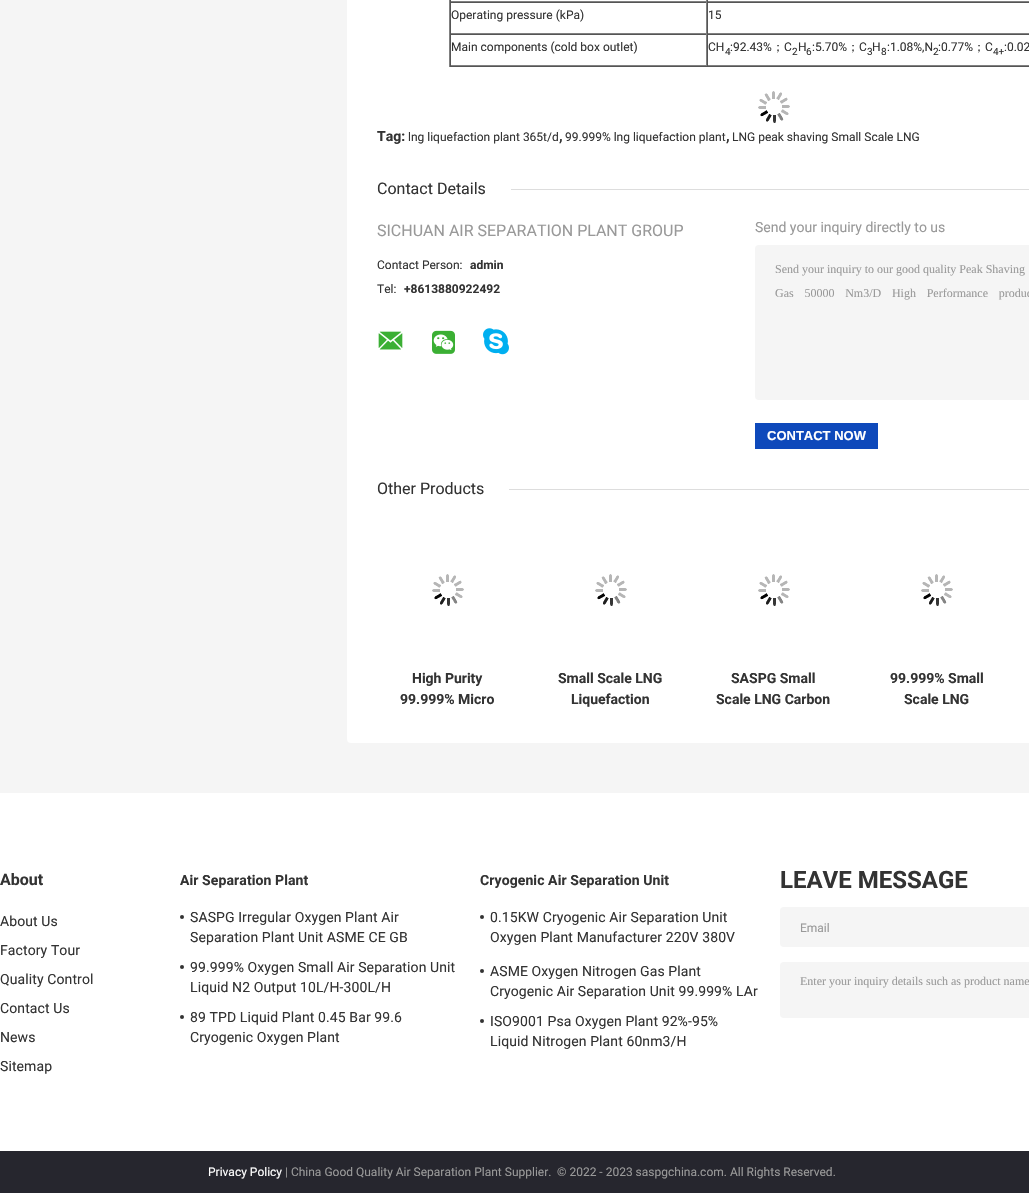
static SkFont makeFont(const char* family, int weight, float size, bool italic = false) {
  SkFontStyle style(weight, SkFontStyle::kNormal_Width,
    italic ? SkFontStyle::kItalic_Slant : SkFontStyle::kUpright_Slant);
  SkFont result(fontMgr->matchFamilyStyle(family, style), size);
  result.setSubpixel(true);
  return result;
}

static void text(SkCanvas* c, const char* s, float x, float y, const SkFont& font, SkColor color) {
  SkPaint ink(SkColor4f::FromColor(color));
  ink.setAntiAlias(true);
  c->drawString(s, x, y, font, ink);
}

static void spacedText(SkCanvas* c, const char* s, float x, float y, const SkFont& font, const SkPaint& ink, float letter, float word) {
  std::vector<SkGlyphID> glyphs(font.countText(s, strlen(s), SkTextEncoding::kUTF8));
  std::vector<float> xs(glyphs.size());
  font.textToGlyphs(s, strlen(s), SkTextEncoding::kUTF8, glyphs);
  font.getXPos(glyphs, xs, x);
  float extra = 0;
  for (size_t i = 0; i < glyphs.size(); i++) {
    xs[i] += extra;
    extra += letter + word * (glyphs[i] == font.unicharToGlyph(' '));
  }
  c->drawTextBlob(SkTextBlob::MakeFromPosHGlyphs(glyphs, xs, y, font), 0, 0, ink);
}

static void box(SkCanvas* c, float l, float t, float r, float b, SkColor color) {
  SkPaint ink(SkColor4f::FromColor(color));
  ink.setAntiAlias(true);
  c->drawRect(SkRect::MakeLTRB(l, t, r, b), ink);
}

static void roundBox(SkCanvas* c, float l, float t, float r, float b, float radius, SkColor color) {
  SkPaint ink(SkColor4f::FromColor(color));
  ink.setAntiAlias(true);
  c->drawRoundRect(SkRect::MakeLTRB(l, t, r, b), radius, radius, ink);
}

static void picture(SkCanvas* c, const char* path, float l, float t, float r, float b) {
  auto image = SkImages::DeferredFromEncodedData(SkData::MakeFromFileName(path));
  c->drawImageRect(image, SkRect::MakeLTRB(l, t, r, b), SkSamplingOptions());
}

void draw(SkCanvas* c) {
  SkPaint paint;
  paint.setAntiAlias(true);
  c->clear(0xfff5f5f5);
  roundBox(c, 347, -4, 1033, 743, 4, 0xffffffff);
  box(c, 449, 66, 1029, 67, 0xff555555);
  box(c, 449, 0, 450, 67, 0xff808080);
  box(c, 706, 0, 707, 2, 0xff808080);
  box(c, 450, 1, 1029, 2, 0xff808080);
  box(c, 450, 0, 451, 2, 0xff555555);
  box(c, 707, 0, 708, 2, 0xff555555);
  box(c, 450, 2, 1029, 3, 0xff555555);
  box(c, 706, 2, 707, 34, 0xff808080);
  box(c, 450, 33, 1029, 34, 0xff808080);
  box(c, 450, 2, 451, 34, 0xff555555);
  SkFont face1 = makeFont("Roboto", 400, 12);
  text(c, "Operating pressure (kPa)", 451, 19, face1, 0xff333333);
  box(c, 707, 2, 708, 34, 0xff555555);
  text(c, "15", 708, 19, face1, 0xff333333);
  box(c, 450, 34, 1029, 35, 0xff555555);
  box(c, 706, 34, 707, 66, 0xff808080);
  box(c, 450, 65, 1029, 66, 0xff808080);
  box(c, 450, 34, 451, 66, 0xff555555);
  text(c, "Main components (cold box outlet)", 451, 51, face1, 0xff333333);
  box(c, 707, 34, 708, 66, 0xff555555);
  text(c, "CH", 708, 51, face1, 0xff333333);
  SkFont face2 = makeFont("Roboto", 400, 10);
  text(c, "4", 725, 55, face2, 0xff333333);
  text(c, ":92.43%", 730, 51, face1, 0xff333333);
  SkFont face3 = makeFont("WenQuanYi Zen Hei", 500, 12);
  text(c, "；", 772, 51, face3, 0xff333333);
  text(c, "C", 784, 51, face1, 0xff333333);
  text(c, "2", 792, 55, face2, 0xff333333);
  text(c, "H", 798, 51, face1, 0xff333333);
  text(c, "6", 806, 55, face2, 0xff333333);
  text(c, ":5.70%", 812, 51, face1, 0xff333333);
  text(c, "；", 847, 51, face3, 0xff333333);
  text(c, "C", 859, 51, face1, 0xff333333);
  text(c, "3", 867, 55, face2, 0xff333333);
  text(c, "H", 872, 51, face1, 0xff333333);
  text(c, "8", 881, 55, face2, 0xff333333);
  text(c, ":1.08%,N", 887, 51, face1, 0xff333333);
  text(c, "2", 933, 55, face2, 0xff333333);
  text(c, ":0.77%", 938, 51, face1, 0xff333333);
  text(c, "；", 973, 51, face3, 0xff333333);
  text(c, "C", 985, 51, face1, 0xff333333);
  text(c, "4+", 993, 55, face2, 0xff333333);
  text(c, ":0.02", 1004, 51, face1, 0xff333333);
  picture(c, "img_01.png", 758, 91, 790, 123);
  SkFont face4 = makeFont("Roboto", 700, 14);
  text(c, "Tag:", 377, 141, face4, 0xff333333);
  text(c, "lng liquefaction plant 365t/d", 408, 141, face1, 0xff333333);
  SkFont face5 = makeFont("Roboto", 400, 18);
  text(c, ",", 559, 141, face5, 0xff333333);
  text(c, "99.999% lng liquefaction plant", 565, 141, face1, 0xff333333);
  text(c, ",", 726, 141, face5, 0xff333333);
  text(c, "LNG peak shaving Small Scale LNG", 732, 141, face1, 0xff333333);
  SkFont face6 = makeFont("Roboto", 400, 16);
  text(c, "Contact Details", 377, 194, face6, 0xff333333);
  box(c, 511, 189, 1029, 190, 0xffdddddd);
  text(c, "SICHUAN AIR SEPARATION PLANT GROUP", 377, 236, face6, 0xff999999);
  text(c, "Contact Person:", 377, 269, face1, 0xff333333);
  SkFont face7 = makeFont("Roboto", 700, 12);
  text(c, "admin", 470, 269, face7, 0xff333333);
  text(c, "Tel:", 377, 293, face1, 0xff333333);
  text(c, "+8613880922492", 404, 293, face7, 0xff333333);
  picture(c, "img_02.png", 378, 331, 403, 350);
  picture(c, "img_03.png", 432, 330, 455, 354);
  picture(c, "img_04.png", 483, 328, 509, 355);
  SkFont face8 = makeFont("Roboto", 400, 14);
  text(c, "Send your inquiry directly to us", 755, 232, face8, 0xff999999);
  roundBox(c, 755, 245, 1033, 400, 4, 0xfff5f5f5);
  SkFont face9 = makeFont("Liberation Serif", 400, 12);
  text(c, "Send your inquiry to our good quality Peak Shaving", 775, 273, face9, 0xff999999);
  paint.setColor(0xff999999);
  spacedText(c, "Gas 50000 Nm3/D High Performance produc", 775, 297, face9, paint, 0, 7.75f);
  box(c, 755, 423, 878, 449, 0xff0e49bb);
  SkFont face10 = makeFont("Liberation Sans", 700, 13);
  text(c, "CONTACT NOW", 767, 440, face10, 0xffffffff);
  text(c, "Other Products", 377, 494, face6, 0xff333333);
  box(c, 509, 489, 1029, 490, 0xffdddddd);
  picture(c, "img_01.png", 432, 574, 464, 606);
  text(c, "High Purity", 412, 683, face4, 0xff333333);
  text(c, "99.999% Micro", 400, 704, face4, 0xff333333);
  picture(c, "img_01.png", 595, 574, 627, 606);
  text(c, "Small Scale LNG", 558, 683, face4, 0xff333333);
  text(c, "Liquefaction", 571, 704, face4, 0xff333333);
  picture(c, "img_01.png", 758, 574, 790, 606);
  text(c, "SASPG Small", 731, 683, face4, 0xff333333);
  text(c, "Scale LNG Carbon", 716, 704, face4, 0xff333333);
  picture(c, "img_01.png", 921, 574, 953, 606);
  text(c, "99.999% Small", 890, 683, face4, 0xff333333);
  text(c, "Scale LNG", 904, 704, face4, 0xff333333);
  box(c, 0, 793, 1029, 1151, 0xffffffff);
  SkFont face11 = makeFont("Roboto", 700, 16);
  text(c, "About", 0, 885, face11, 0xff333333);
  paint.setColor(0xff333333);
  spacedText(c, "About Us", 0, 926, face8, paint, 0.1f, 0);
  spacedText(c, "Factory Tour", 0, 955, face8, paint, 0.1f, 0);
  spacedText(c, "Quality Control", 0, 984, face8, paint, 0.1f, 0);
  spacedText(c, "Contact Us", 0, 1013, face8, paint, 0.1f, 0);
  spacedText(c, "News", 0, 1042, face8, paint, 0.1f, 0);
  spacedText(c, "Sitemap", 0, 1071, face8, paint, 0.1f, 0);
  spacedText(c, "Air Separation Plant", 180, 885, face4, paint, 0.1f, 0);
  c->drawCircle(182, 917, 2, paint);
  spacedText(c, "SASPG Irregular Oxygen Plant Air", 190, 922, face8, paint, 0.1f, 0);
  spacedText(c, "Separation Plant Unit ASME CE GB", 190, 942, face8, paint, 0.1f, 0);
  c->drawCircle(182, 967, 2, paint);
  spacedText(c, "99.999% Oxygen Small Air Separation Unit", 190, 972, face8, paint, 0.1f, 0);
  spacedText(c, "Liquid N2 Output 10L/H-300L/H", 190, 992, face8, paint, 0.1f, 0);
  c->drawCircle(182, 1017, 2, paint);
  spacedText(c, "89 TPD Liquid Plant 0.45 Bar 99.6", 190, 1022, face8, paint, 0.1f, 0);
  spacedText(c, "Cryogenic Oxygen Plant", 190, 1042, face8, paint, 0.1f, 0);
  spacedText(c, "Cryogenic Air Separation Unit", 480, 885, face4, paint, 0.1f, 0);
  c->drawCircle(482, 917, 2, paint);
  spacedText(c, "0.15KW Cryogenic Air Separation Unit", 490, 922, face8, paint, 0.1f, 0);
  spacedText(c, "Oxygen Plant Manufacturer 220V 380V", 490, 942, face8, paint, 0.1f, 0);
  c->drawCircle(482, 971, 2, paint);
  spacedText(c, "ASME Oxygen Nitrogen Gas Plant", 490, 976, face8, paint, 0.1f, 0);
  spacedText(c, "Cryogenic Air Separation Unit 99.999% LAr", 490, 996, face8, paint, 0.1f, 0);
  c->drawCircle(482, 1021, 2, paint);
  spacedText(c, "ISO9001 Psa Oxygen Plant 92%-95%", 490, 1026, face8, paint, 0.1f, 0);
  spacedText(c, "Liquid Nitrogen Plant 60nm3/H", 490, 1046, face8, paint, 0.1f, 0);
  SkFont face12 = makeFont("Roboto", 700, 24);
  text(c, "LEAVE MESSAGE", 780, 888, face12, 0xff333333);
  roundBox(c, 780, 907, 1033, 947, 4, 0xfff5f5f5);
  text(c, "Email", 800, 932, face1, 0xff999999);
  roundBox(c, 780, 962, 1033, 1018, 4, 0xfff5f5f5);
  text(c, "Enter your inquiry details such as product name", 800, 985, face9, 0xff999999);
  box(c, 0, 1151, 1029, 1193, 0xff26262e);
  text(c, "Privacy Policy", 208, 1176, face1, 0xffffffff);
  text(c, "| China Good Quality Air Separation Plant Supplier.", 285, 1176, face1, 0xff999999);
  text(c, "© 2022 - 2023 saspgchina.com. All Rights Reserved.", 557, 1176, face1, 0xff999999);
}
